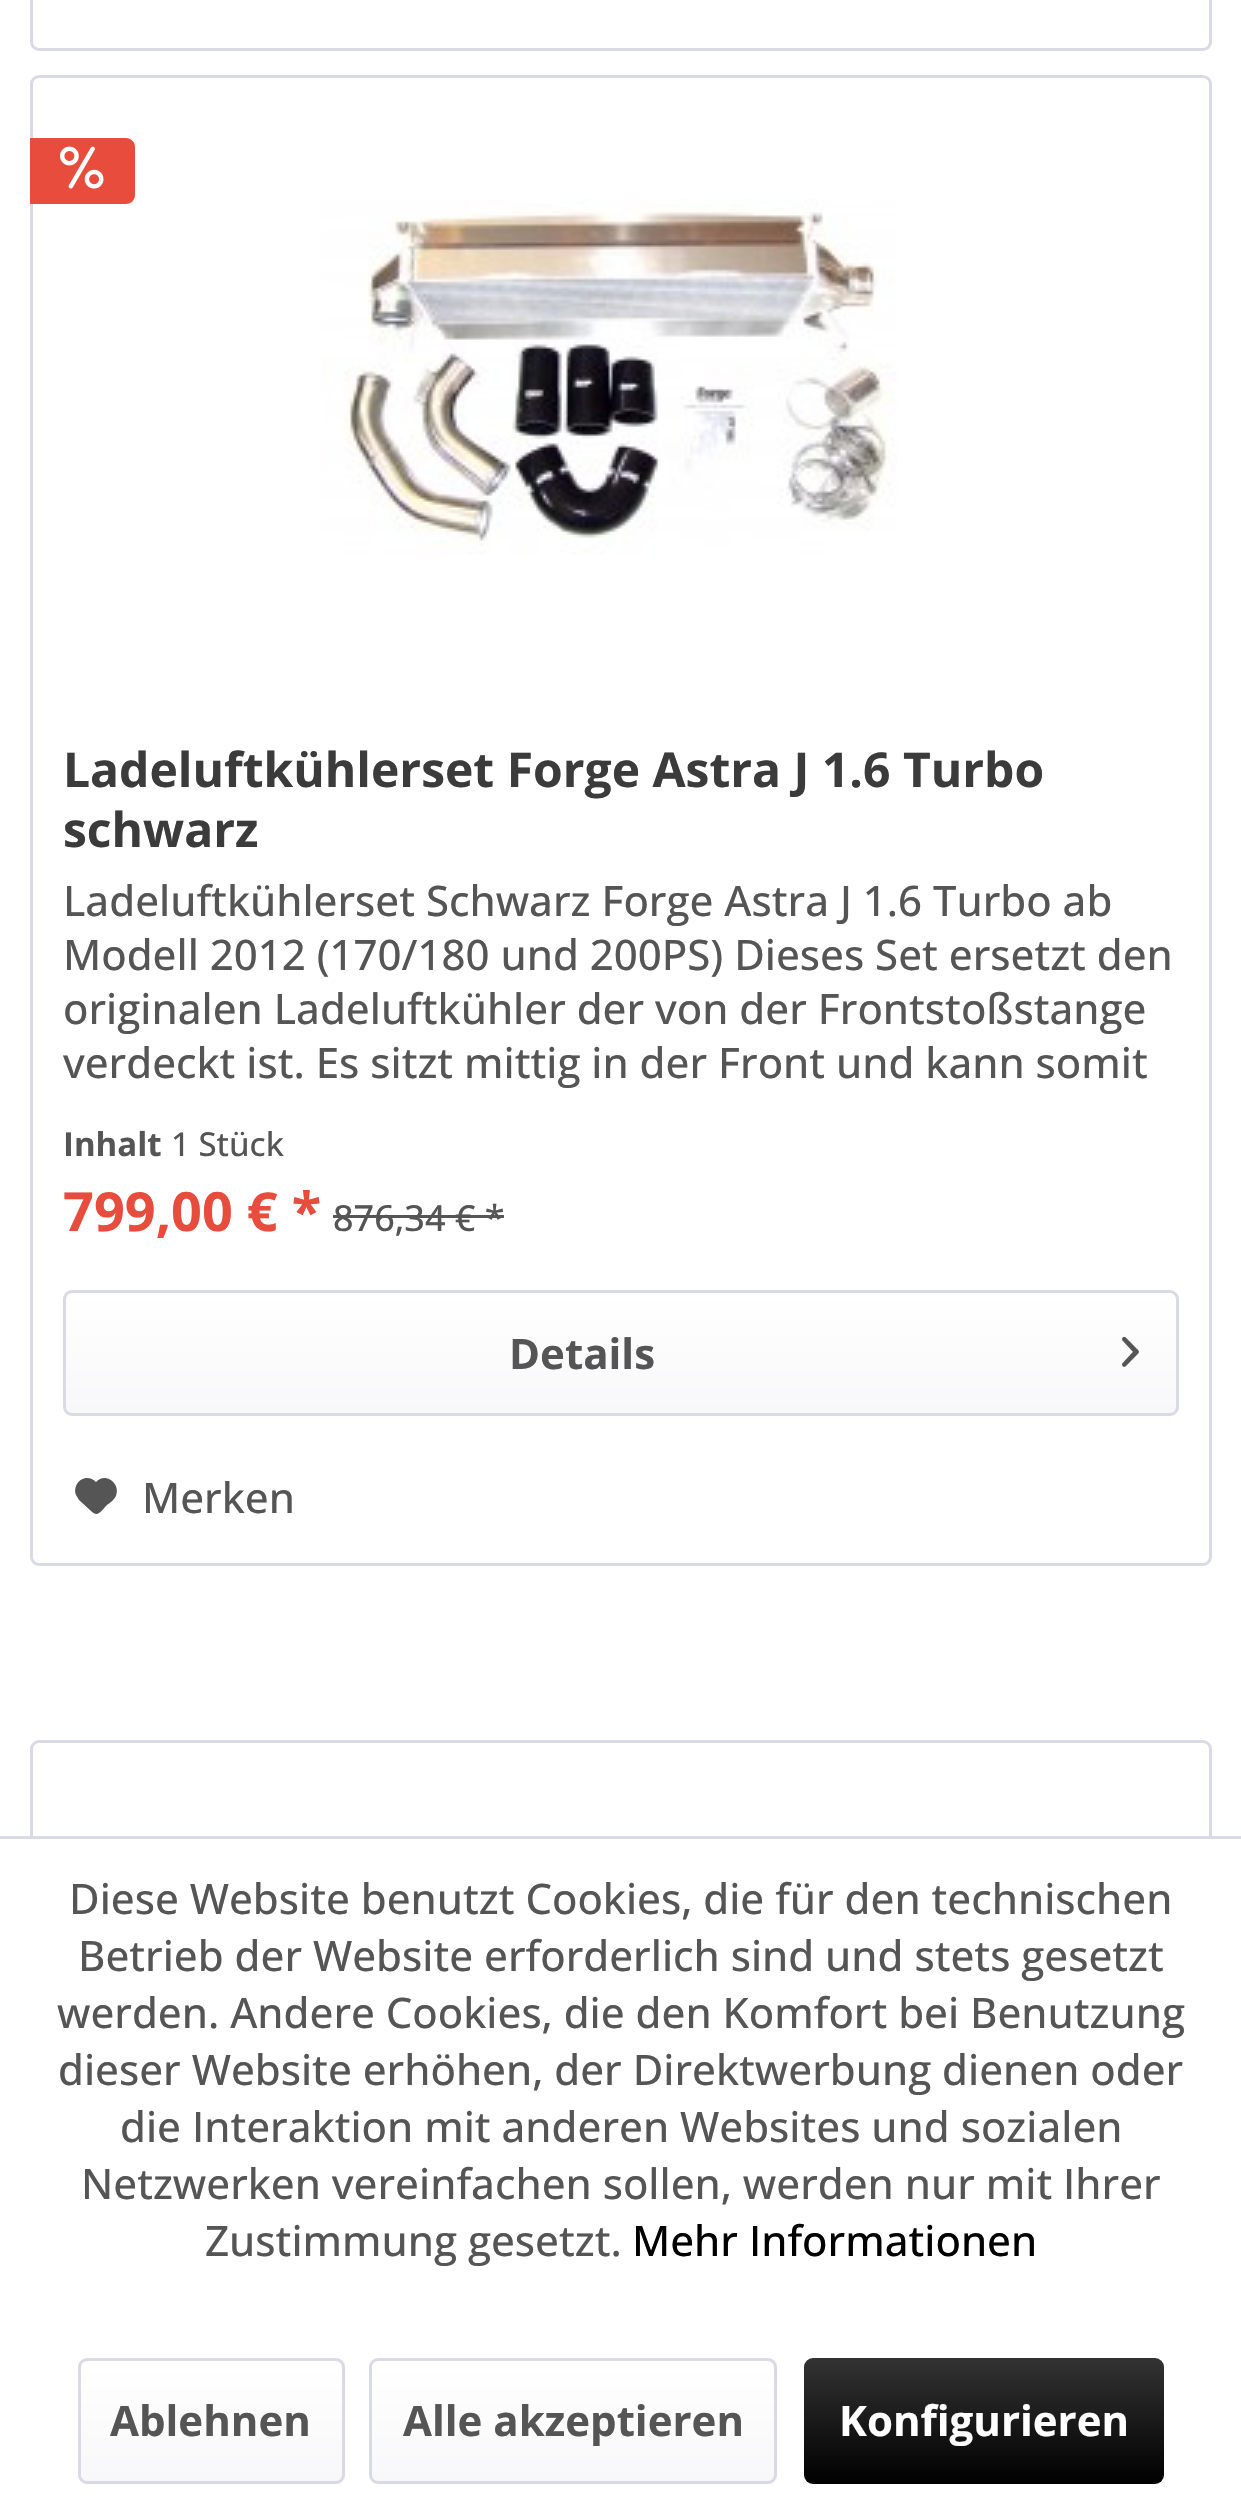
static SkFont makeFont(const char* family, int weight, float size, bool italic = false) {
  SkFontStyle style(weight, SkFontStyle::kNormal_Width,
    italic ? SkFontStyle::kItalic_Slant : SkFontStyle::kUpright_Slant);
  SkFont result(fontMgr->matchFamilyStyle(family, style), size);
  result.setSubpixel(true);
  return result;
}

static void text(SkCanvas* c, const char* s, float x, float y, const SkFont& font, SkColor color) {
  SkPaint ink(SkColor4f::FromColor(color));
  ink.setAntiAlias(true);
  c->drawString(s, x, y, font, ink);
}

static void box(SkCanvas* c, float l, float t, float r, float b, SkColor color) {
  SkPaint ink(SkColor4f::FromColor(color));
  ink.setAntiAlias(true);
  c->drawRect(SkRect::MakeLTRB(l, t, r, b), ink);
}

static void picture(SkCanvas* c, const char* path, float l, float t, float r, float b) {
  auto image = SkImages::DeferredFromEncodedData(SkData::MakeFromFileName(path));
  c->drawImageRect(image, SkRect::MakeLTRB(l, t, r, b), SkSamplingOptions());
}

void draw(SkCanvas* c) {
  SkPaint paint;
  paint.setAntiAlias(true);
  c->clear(0xffffffff);
  paint.setStyle(SkPaint::kStroke_Style);
  paint.setStrokeWidth(3);
  paint.setColor(0xffdadae5);
  c->drawRoundRect(SkRect::MakeLTRB(31.5f, -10.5f, 1210.5f, 49.5f), 7.5f, 7.5f, paint);
  c->drawRoundRect(SkRect::MakeLTRB(31.5f, 76.5f, 1210.5f, 1564.5f), 7.5f, 7.5f, paint);
  paint.setStyle(SkPaint::kFill_Style);
  paint.setColor(0xffe74c3c);
  c->drawPath(SkPathBuilder().moveTo(30, 138).lineTo(126, 138).cubicTo(131, 138, 135, 142, 135, 147).lineTo(135, 195).cubicTo(135, 200, 131, 204, 126, 204).lineTo(30, 204).close().detach(), paint);
  picture(c, "img_01.png", 60, 146, 104, 189);
  picture(c, "img_02.png", 321, 199, 897, 555);
  SkFont face1 = makeFont("Open Sans", 700, 48);
  text(c, "Ladeluftkühlerset Forge Astra J 1.6 Turbo", 63, 787, face1, 0xff3b3b3b);
  text(c, "schwarz", 63, 847, face1, 0xff3b3b3b);
  SkFont face2 = makeFont("Open Sans", 500, 42);
  text(c, "Ladeluftkühlerset Schwarz Forge Astra J 1.6 Turbo ab", 63, 916, face2, 0xff555555);
  text(c, "Modell 2012 (170/180 und 200PS) Dieses Set ersetzt den", 63, 970, face2, 0xff555555);
  text(c, "originalen Ladeluftkühler der von der Frontstoßstange", 63, 1024, face2, 0xff555555);
  text(c, "verdeckt ist. Es sitzt mittig in der Front und kann somit", 63, 1078, face2, 0xff555555);
  SkFont face3 = makeFont("Open Sans", 700, 33);
  text(c, "Inhalt", 63, 1156, face3, 0xff555555);
  SkFont face4 = makeFont("Open Sans", 500, 33);
  text(c, "1 Stück", 171, 1156, face4, 0xff555555);
  SkFont face5 = makeFont("Open Sans", 700, 54);
  text(c, "799,00 € *", 63, 1231, face5, 0xffe74c3c);
  SkFont face6 = makeFont("Open Sans", 500, 36);
  text(c, "876,34 € *", 333, 1231, face6, 0xff555555);
  box(c, 333, 1215, 504, 1218, 0xff555555);
  {
    const SkColor colors[] = {0xffffffff, 0xfff8f8fa};
    const float stops[] = {0, 1};
    const SkPoint ends[] = {{621, 1293}, {621, 1413}};
    paint.setShader(SkGradientShader::MakeLinear(ends, colors, stops, 2, SkTileMode::kClamp));
    paint.setAlpha(255);
  }
  c->drawRoundRect(SkRect::MakeLTRB(66, 1293, 1176, 1413), 6, 6, paint);
  paint.setStyle(SkPaint::kStroke_Style);
  paint.setShader(nullptr);
  paint.setColor(0xffdadae5);
  c->drawRoundRect(SkRect::MakeLTRB(64.5f, 1291.5f, 1177.5f, 1414.5f), 7.5f, 7.5f, paint);
  SkFont face7 = makeFont("Open Sans", 700, 42);
  text(c, "Details", 509, 1369, face7, 0xff555555);
  picture(c, "img_03.png", 1122, 1336, 1139, 1367);
  paint.setStyle(SkPaint::kFill_Style);
  paint.setColor(0xff555555);
  c->drawPath(SkPathBuilder().moveTo(87, 1478).cubicTo(79, 1478, 73, 1487, 76, 1495).lineTo(79, 1500).lineTo(91, 1511).cubicTo(98, 1518, 101, 1511, 107, 1505).cubicTo(110, 1503, 114, 1500, 116, 1496).cubicTo(121, 1483, 105, 1472, 96, 1482).cubicTo(94, 1480, 91, 1478, 87, 1478).close().detach(), paint);
  text(c, "Merken", 142, 1513, face2, 0xff555555);
  paint.setStyle(SkPaint::kStroke_Style);
  paint.setColor(0xffdadae5);
  c->drawRoundRect(SkRect::MakeLTRB(31.5f, 1741.5f, 1210.5f, 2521.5f), 7.5f, 7.5f, paint);
  box(c, 30, 1839, 1212, 2514, 0xffffffff);
  box(c, 0, 1836, 1241, 1839, 0xffdadae5);
  text(c, "Diese Website benutzt Cookies, die für den technischen", 69, 1914, face2, 0xff555555);
  text(c, "Betrieb der Website erforderlich sind und stets gesetzt", 78, 1971, face2, 0xff555555);
  text(c, "werden. Andere Cookies, die den Komfort bei Benutzung", 57, 2028, face2, 0xff555555);
  text(c, "dieser Website erhöhen, der Direktwerbung dienen oder", 58, 2085, face2, 0xff555555);
  text(c, "die Interaktion mit anderen Websites und sozialen", 120, 2142, face2, 0xff555555);
  text(c, "Netzwerken vereinfachen sollen, werden nur mit Ihrer", 81, 2199, face2, 0xff555555);
  text(c, "Zustimmung gesetzt.", 205, 2256, face2, 0xff555555);
  text(c, "Mehr Informationen", 632, 2256, face2, 0xff000000);
  paint.setStyle(SkPaint::kFill_Style);
  {
    const SkColor colors[] = {0xffffffff, 0xfff8f8fa};
    const float stops[] = {0, 1};
    const SkPoint ends[] = {{212, 2361}, {212, 2481}};
    paint.setShader(SkGradientShader::MakeLinear(ends, colors, stops, 2, SkTileMode::kClamp));
    paint.setAlpha(255);
  }
  c->drawRoundRect(SkRect::MakeLTRB(81, 2361, 342, 2481), 6, 6, paint);
  paint.setStyle(SkPaint::kStroke_Style);
  paint.setShader(nullptr);
  paint.setColor(0xffdadae5);
  c->drawRoundRect(SkRect::MakeLTRB(79.5f, 2359.5f, 343.5f, 2482.5f), 7.5f, 7.5f, paint);
  text(c, "Ablehnen", 110, 2436, face7, 0xff555555);
  paint.setStyle(SkPaint::kFill_Style);
  {
    const SkColor colors[] = {0xffffffff, 0xfff8f8fa};
    const float stops[] = {0, 1};
    const SkPoint ends[] = {{573, 2361}, {573, 2481}};
    paint.setShader(SkGradientShader::MakeLinear(ends, colors, stops, 2, SkTileMode::kClamp));
    paint.setAlpha(255);
  }
  c->drawRoundRect(SkRect::MakeLTRB(372, 2361, 774, 2481), 6, 6, paint);
  paint.setStyle(SkPaint::kStroke_Style);
  paint.setShader(nullptr);
  paint.setColor(0xffdadae5);
  c->drawRoundRect(SkRect::MakeLTRB(370.5f, 2359.5f, 775.5f, 2482.5f), 7.5f, 7.5f, paint);
  text(c, "Alle akzeptieren", 403, 2436, face7, 0xff555555);
  paint.setStyle(SkPaint::kFill_Style);
  {
    const SkColor colors[] = {0xff333333, 0xff000000};
    const float stops[] = {0, 1};
    const SkPoint ends[] = {{984, 2358}, {984, 2484}};
    paint.setShader(SkGradientShader::MakeLinear(ends, colors, stops, 2, SkTileMode::kClamp));
    paint.setAlpha(255);
  }
  c->drawRoundRect(SkRect::MakeLTRB(804, 2358, 1164, 2484), 9, 9, paint);
  text(c, "Konfigurieren", 839, 2436, face7, 0xffffffff);
}
